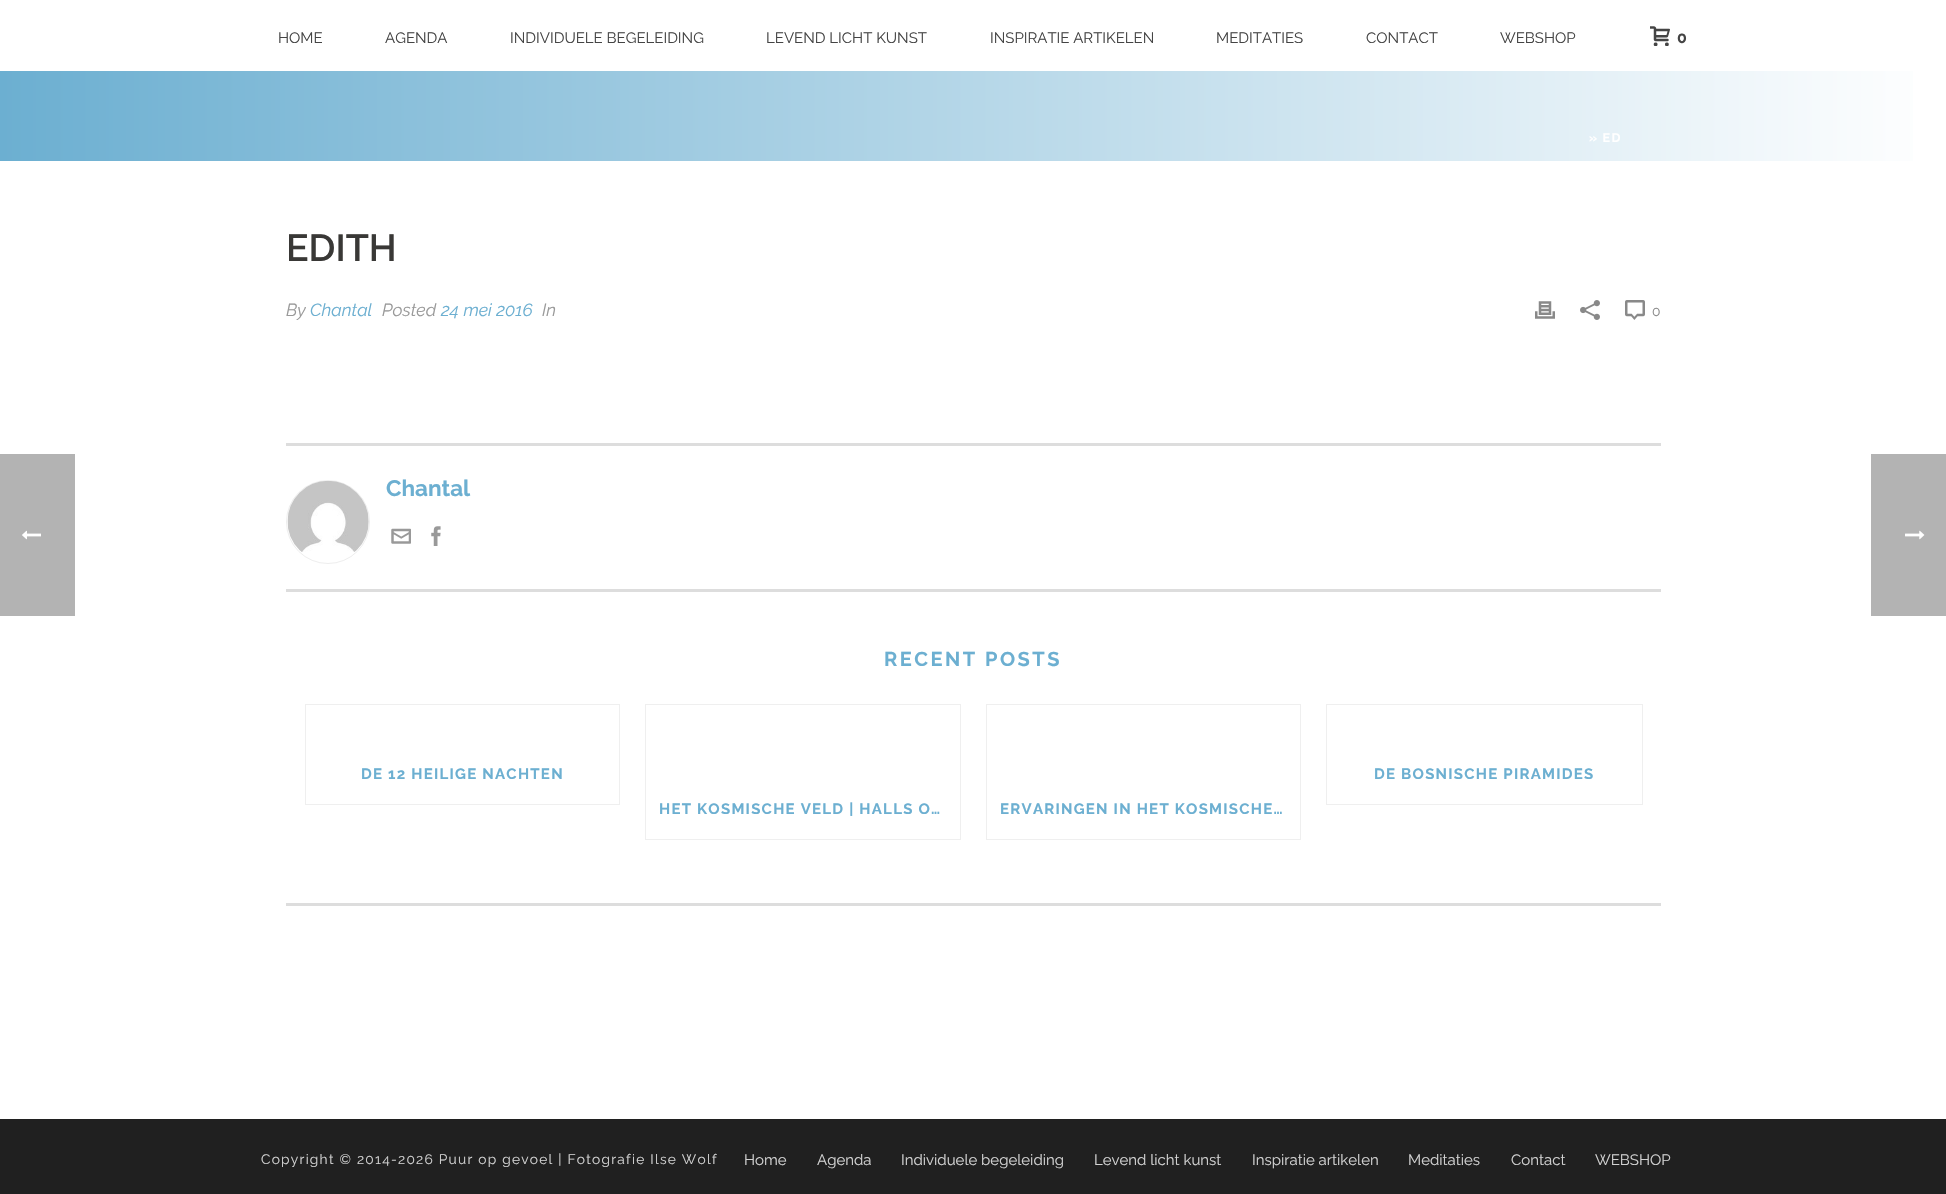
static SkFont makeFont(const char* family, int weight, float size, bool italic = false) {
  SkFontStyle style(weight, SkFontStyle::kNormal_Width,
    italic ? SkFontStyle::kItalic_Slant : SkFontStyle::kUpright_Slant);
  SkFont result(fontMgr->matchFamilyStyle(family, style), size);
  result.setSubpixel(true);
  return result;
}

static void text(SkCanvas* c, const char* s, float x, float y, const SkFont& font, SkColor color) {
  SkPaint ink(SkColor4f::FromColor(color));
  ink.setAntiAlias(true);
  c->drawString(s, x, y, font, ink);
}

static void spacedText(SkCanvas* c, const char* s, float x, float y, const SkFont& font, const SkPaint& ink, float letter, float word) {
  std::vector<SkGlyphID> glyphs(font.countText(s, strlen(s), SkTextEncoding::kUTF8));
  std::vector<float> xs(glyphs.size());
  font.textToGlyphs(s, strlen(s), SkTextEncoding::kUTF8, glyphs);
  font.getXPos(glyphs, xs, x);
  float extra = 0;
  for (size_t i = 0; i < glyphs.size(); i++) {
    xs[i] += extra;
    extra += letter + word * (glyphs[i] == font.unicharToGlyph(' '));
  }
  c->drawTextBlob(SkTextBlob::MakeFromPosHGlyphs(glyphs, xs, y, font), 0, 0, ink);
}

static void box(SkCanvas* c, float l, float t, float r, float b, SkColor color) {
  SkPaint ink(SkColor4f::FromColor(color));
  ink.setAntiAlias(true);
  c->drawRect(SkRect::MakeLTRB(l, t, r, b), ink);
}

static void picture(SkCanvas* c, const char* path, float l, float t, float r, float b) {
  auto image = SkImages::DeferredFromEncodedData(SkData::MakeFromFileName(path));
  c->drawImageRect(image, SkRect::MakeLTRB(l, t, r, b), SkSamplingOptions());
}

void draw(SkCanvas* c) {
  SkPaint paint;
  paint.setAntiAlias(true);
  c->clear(0xffffffff);
  box(c, 0, 454, 75, 616, 0xffb3b3b3);
  picture(c, "img_01.png", 22, 530, 41, 540);
  {
    const SkColor colors[] = {0xff6cafd1, 0xffffffff};
    const float stops[] = {0, 1};
    const SkPoint ends[] = {{0, -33}, {1946, -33}};
    paint.setShader(SkGradientShader::MakeLinear(ends, colors, stops, 2, SkTileMode::kClamp));
    paint.setAlpha(255);
  }
  c->drawRect(SkRect::MakeLTRB(0, 71, 1913, 161), paint);
  SkFont face1 = makeFont("Raleway", 400, 15);
  text(c, "HOME", 278, 43, face1, 0xff444444);
  text(c, "AGENDA", 385, 43, face1, 0xff444444);
  text(c, "INDIVIDUELE BEGELEIDING", 510, 43, face1, 0xff444444);
  text(c, "LEVEND LICHT KUNST", 766, 43, face1, 0xff444444);
  text(c, "INSPIRATIE ARTIKELEN", 990, 43, face1, 0xff444444);
  text(c, "MEDITATIES", 1216, 43, face1, 0xff444444);
  text(c, "CONTACT", 1366, 43, face1, 0xff444444);
  text(c, "WEBSHOP", 1500, 43, face1, 0xff444444);
  picture(c, "img_02.png", 1650, 26, 1670, 46);
  SkFont face2 = makeFont("Raleway", 700, 16);
  text(c, "0", 1677, 43, face2, 0xff444444);
  SkFont face3 = makeFont("Raleway", 700, 12.5f);
  paint.setShader(nullptr);
  paint.setColor(0xffffffff);
  spacedText(c, "» ED", 1589, 142, face3, paint, 1.25f, 0);
  SkFont face4 = makeFont("Raleway", 600, 37.5f);
  text(c, "EDITH", 286, 261, face4, 0xff393836);
  SkFont face5 = makeFont("Raleway", 400, 17.5f, true);
  text(c, "By", 286, 316, face5, 0xff999999);
  text(c, "Chantal", 310, 316, face5, 0xff6cafd1);
  text(c, "Posted", 382, 316, face5, 0xff999999);
  text(c, "24 mei 2016", 441, 316, face5, 0xff6cafd1);
  text(c, "In", 542, 316, face5, 0xff999999);
  picture(c, "img_03.png", 1535, 301, 1555, 319);
  picture(c, "img_04.png", 1580, 300, 1600, 320);
  picture(c, "img_05.png", 1625, 300, 1645, 320);
  SkFont face6 = makeFont("Raleway", 400, 13.75f);
  text(c, "0", 1652, 316, face6, 0xff898989);
  box(c, 286, 443, 1661, 446, 0xffdddddd);
  box(c, 286, 589, 1661, 592, 0xffdddddd);
  paint.setStyle(SkPaint::kStroke_Style);
  paint.setStrokeWidth(1);
  paint.setColor(0xffeeeeee);
  c->drawCircle(328, 522, 41.5f, paint);
  picture(c, "img_06.png", 287, 481, 369, 552);
  SkFont face7 = makeFont("Raleway", 700, 22.5f);
  text(c, "Chantal", 386, 496, face7, 0xff6cafd1);
  picture(c, "img_07.png", 391, 528, 411, 544);
  picture(c, "img_08.png", 431, 526, 441, 546);
  box(c, 286, 903, 1661, 906, 0xffdddddd);
  SkFont face8 = makeFont("Raleway", 700, 20);
  paint.setStyle(SkPaint::kFill_Style);
  paint.setColor(0xff6cafd1);
  spacedText(c, "RECENT POSTS", 884, 666, face8, paint, 2.5f, 0);
  paint.setStyle(SkPaint::kStroke_Style);
  paint.setColor(0xffefefef);
  c->drawRect(SkRect::MakeLTRB(305.5f, 704.5f, 619.5f, 804.5f), paint);
  SkFont face9 = makeFont("Raleway", 700, 15);
  paint.setStyle(SkPaint::kFill_Style);
  paint.setColor(0xff6cafd1);
  spacedText(c, "DE 12 HEILIGE NACHTEN", 361, 779, face9, paint, 1.25f, 0);
  paint.setStyle(SkPaint::kStroke_Style);
  paint.setColor(0xffefefef);
  c->drawRect(SkRect::MakeLTRB(1326.5f, 704.5f, 1642.5f, 804.5f), paint);
  paint.setStyle(SkPaint::kFill_Style);
  paint.setColor(0xff6cafd1);
  spacedText(c, "DE BOSNISCHE PIRAMIDES", 1374, 779, face9, paint, 1.25f, 0);
  paint.setStyle(SkPaint::kStroke_Style);
  paint.setColor(0xffefefef);
  c->drawRect(SkRect::MakeLTRB(645.5f, 704.5f, 960.5f, 839.5f), paint);
  paint.setStyle(SkPaint::kFill_Style);
  paint.setColor(0xff6cafd1);
  spacedText(c, "HET KOSMISCHE VELD | HALLS O…", 659, 814, face9, paint, 1.25f, 0);
  paint.setStyle(SkPaint::kStroke_Style);
  paint.setColor(0xffefefef);
  c->drawRect(SkRect::MakeLTRB(986.5f, 704.5f, 1300.5f, 839.5f), paint);
  paint.setStyle(SkPaint::kFill_Style);
  paint.setColor(0xff6cafd1);
  spacedText(c, "ERVARINGEN IN HET KOSMISCHE…", 1000, 814, face9, paint, 1.25f, 0);
  box(c, 0, 1119, 1946, 1194, 0xff202020);
  paint.setColor(0xffd2d2d2);
  spacedText(c, "Copyright © 2014-2026 Puur op gevoel | Fotografie Ilse Wolf", 261, 1164, face6, paint, 1.25f, 0);
  text(c, "Home", 744, 1165, face1, 0xffd2d2d2);
  text(c, "Agenda", 817, 1165, face1, 0xffd2d2d2);
  text(c, "Individuele begeleiding", 901, 1165, face1, 0xffd2d2d2);
  text(c, "Levend licht kunst", 1094, 1165, face1, 0xffd2d2d2);
  text(c, "Inspiratie artikelen", 1252, 1165, face1, 0xffd2d2d2);
  text(c, "Meditaties", 1408, 1165, face1, 0xffd2d2d2);
  text(c, "Contact", 1511, 1165, face1, 0xffd2d2d2);
  text(c, "WEBSHOP", 1595, 1165, face1, 0xffd2d2d2);
  box(c, 1871, 454, 1946, 616, 0xffb3b3b3);
  picture(c, "img_09.png", 1905, 530, 1925, 540);
}
